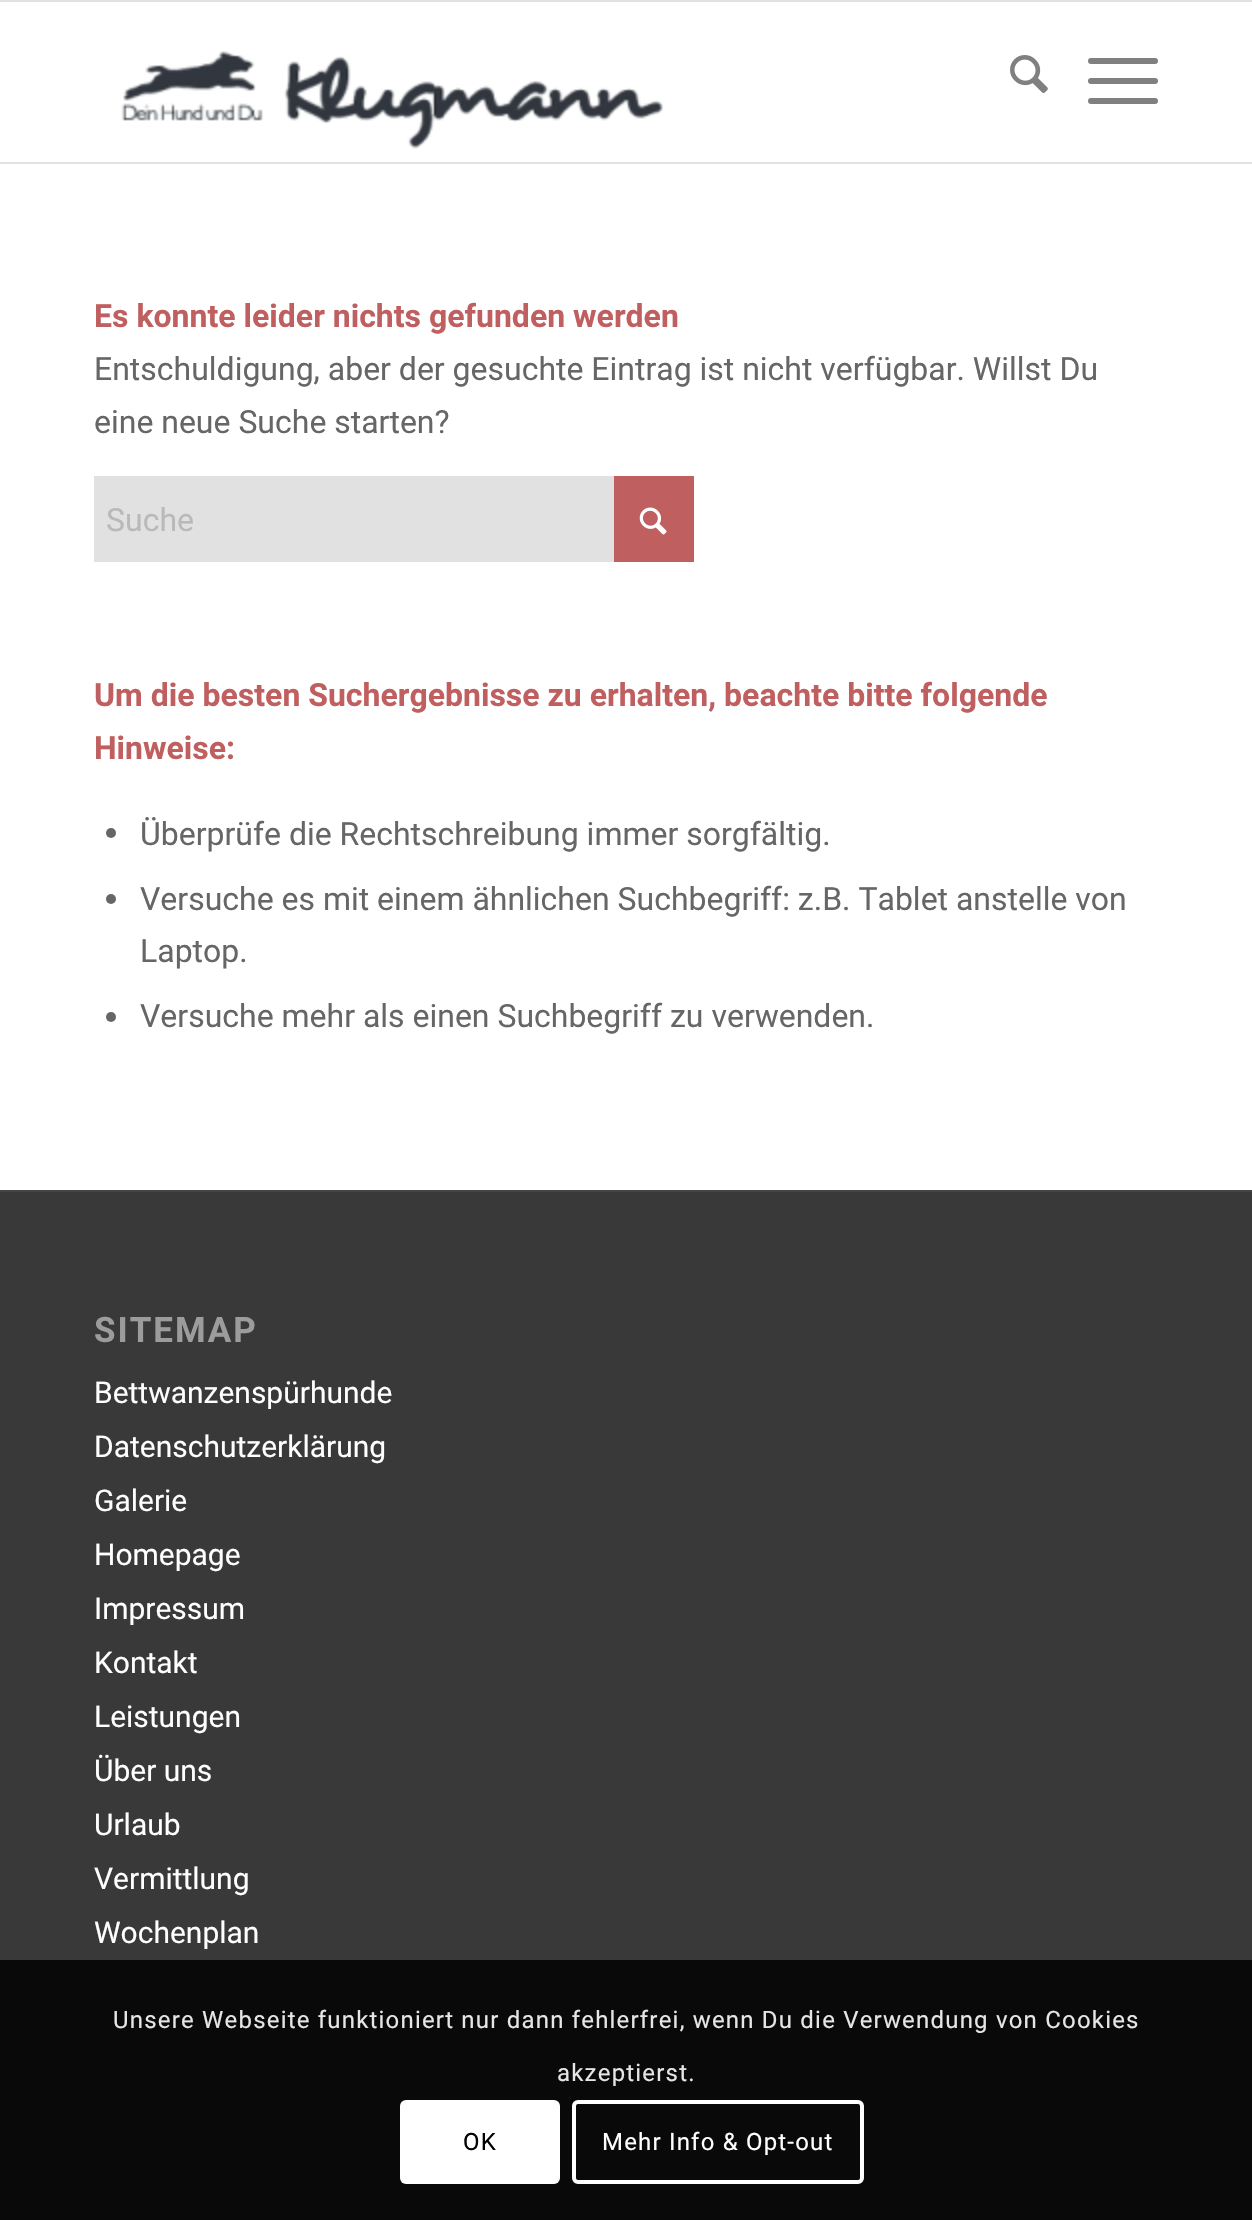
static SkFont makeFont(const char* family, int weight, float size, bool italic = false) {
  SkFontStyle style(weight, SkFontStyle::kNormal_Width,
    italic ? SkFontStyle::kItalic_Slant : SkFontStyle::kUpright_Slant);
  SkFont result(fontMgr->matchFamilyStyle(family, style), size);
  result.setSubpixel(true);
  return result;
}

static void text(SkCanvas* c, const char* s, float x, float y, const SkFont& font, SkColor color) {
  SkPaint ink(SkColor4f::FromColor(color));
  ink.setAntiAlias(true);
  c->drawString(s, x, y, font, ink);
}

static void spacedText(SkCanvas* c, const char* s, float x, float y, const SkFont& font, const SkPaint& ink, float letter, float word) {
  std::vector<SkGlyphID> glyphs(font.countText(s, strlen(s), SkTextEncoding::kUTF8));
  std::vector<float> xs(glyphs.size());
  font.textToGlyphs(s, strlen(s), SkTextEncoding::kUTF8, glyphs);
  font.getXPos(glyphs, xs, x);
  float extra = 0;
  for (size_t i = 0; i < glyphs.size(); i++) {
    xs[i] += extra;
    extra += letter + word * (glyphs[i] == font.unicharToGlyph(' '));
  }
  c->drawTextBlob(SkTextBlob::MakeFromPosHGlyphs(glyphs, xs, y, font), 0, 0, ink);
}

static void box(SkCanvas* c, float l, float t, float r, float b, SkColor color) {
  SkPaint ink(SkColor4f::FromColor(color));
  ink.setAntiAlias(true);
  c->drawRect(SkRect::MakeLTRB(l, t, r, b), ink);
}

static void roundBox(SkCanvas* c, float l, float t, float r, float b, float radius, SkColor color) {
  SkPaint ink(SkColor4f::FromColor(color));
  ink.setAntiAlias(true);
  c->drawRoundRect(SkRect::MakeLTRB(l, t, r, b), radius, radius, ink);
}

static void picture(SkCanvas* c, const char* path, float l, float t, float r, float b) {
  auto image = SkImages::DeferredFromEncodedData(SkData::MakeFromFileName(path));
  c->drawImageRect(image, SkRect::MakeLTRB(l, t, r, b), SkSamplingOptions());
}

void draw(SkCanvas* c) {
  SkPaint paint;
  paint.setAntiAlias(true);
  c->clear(0xffffffff);
  box(c, 0, 0, 1252, 2, 0xffe1e1e1);
  box(c, 0, 162, 1252, 164, 0xffe1e1e1);
  picture(c, "img_01.png", 121, 51, 664, 149);
  picture(c, "img_02.png", 1010, 55, 1048, 93);
  roundBox(c, 1088, 78, 1158, 84, 3, 0xff808080);
  roundBox(c, 1088, 58, 1158, 64, 3, 0xff808080);
  roundBox(c, 1088, 98, 1158, 104, 3, 0xff808080);
  SkFont face1 = makeFont("Roboto", 700, 32);
  text(c, "Es konnte leider nichts gefunden werden", 94, 327, face1, 0xffc05f5f);
  SkFont face2 = makeFont("Roboto", 400, 32);
  text(c, "Entschuldigung, aber der gesuchte Eintrag ist nicht verfügbar. Willst Du", 94, 380, face2, 0xff666666);
  text(c, "eine neue Suche starten?", 94, 433, face2, 0xff666666);
  box(c, 94, 476, 614, 562, 0xffe1e1e1);
  text(c, "Suche", 106, 531, face2, 0xffb9b9b9);
  box(c, 614, 476, 694, 562, 0xffc05f5f);
  picture(c, "img_03.png", 639, 507, 667, 535);
  text(c, "Um die besten Suchergebnisse zu erhalten, beachte bitte folgende", 94, 706, face1, 0xffc05f5f);
  text(c, "Hinweise:", 94, 759, face1, 0xffc05f5f);
  paint.setColor(0xff666666);
  c->drawCircle(111, 833, 5, paint);
  text(c, "Überprüfe die Rechtschreibung immer sorgfältig.", 140, 845, face2, 0xff666666);
  c->drawCircle(111, 899, 5, paint);
  text(c, "Versuche es mit einem ähnlichen Suchbegriff: z.B. Tablet anstelle von", 140, 910, face2, 0xff666666);
  text(c, "Laptop.", 140, 962, face2, 0xff666666);
  c->drawCircle(111, 1017, 5, paint);
  text(c, "Versuche mehr als einen Suchbegriff zu verwenden.", 140, 1027, face2, 0xff666666);
  box(c, 0, 1192, 1252, 1960, 0xff393939);
  box(c, 0, 1960, 1252, 2220, 0xff090909);
  box(c, 0, 1190, 1252, 1192, 0xff444444);
  SkFont face3 = makeFont("Roboto", 700, 35);
  paint.setColor(0xff9c9c9c);
  spacedText(c, "SITEMAP", 94, 1342, face3, paint, 2, 0);
  SkFont face4 = makeFont("Roboto", 400, 30);
  text(c, "Bettwanzenspürhunde", 94, 1403, face4, 0xffffffff);
  text(c, "Datenschutzerklärung", 94, 1457, face4, 0xffffffff);
  text(c, "Galerie", 94, 1511, face4, 0xffffffff);
  text(c, "Homepage", 94, 1565, face4, 0xffffffff);
  text(c, "Impressum", 94, 1619, face4, 0xffffffff);
  text(c, "Kontakt", 94, 1673, face4, 0xffffffff);
  text(c, "Leistungen", 94, 1727, face4, 0xffffffff);
  text(c, "Über uns", 94, 1781, face4, 0xffffffff);
  text(c, "Urlaub", 94, 1835, face4, 0xffffffff);
  text(c, "Vermittlung", 94, 1889, face4, 0xffffffff);
  text(c, "Wochenplan", 94, 1943, face4, 0xffffffff);
  SkFont face5 = makeFont("Roboto", 400, 24);
  paint.setColor(0xffe6e6e6);
  spacedText(c, "Unsere Webseite funktioniert nur dann fehlerfrei, wenn Du die Verwendung von Cookies", 113, 2028, face5, paint, 1.2f, 0);
  spacedText(c, "akzeptierst.", 557, 2081, face5, paint, 1.2f, 0);
  roundBox(c, 400, 2100, 560, 2184, 6, 0xffffffff);
  paint.setColor(0xff000000);
  spacedText(c, "OK", 463, 2150, face5, paint, 1.2f, 0);
  paint.setStyle(SkPaint::kStroke_Style);
  paint.setStrokeWidth(4);
  paint.setColor(0xffffffff);
  c->drawRoundRect(SkRect::MakeLTRB(574, 2102, 862, 2182), 4, 4, paint);
  paint.setStyle(SkPaint::kFill_Style);
  spacedText(c, "Mehr Info & Opt-out", 602, 2150, face5, paint, 1.2f, 0);
}
